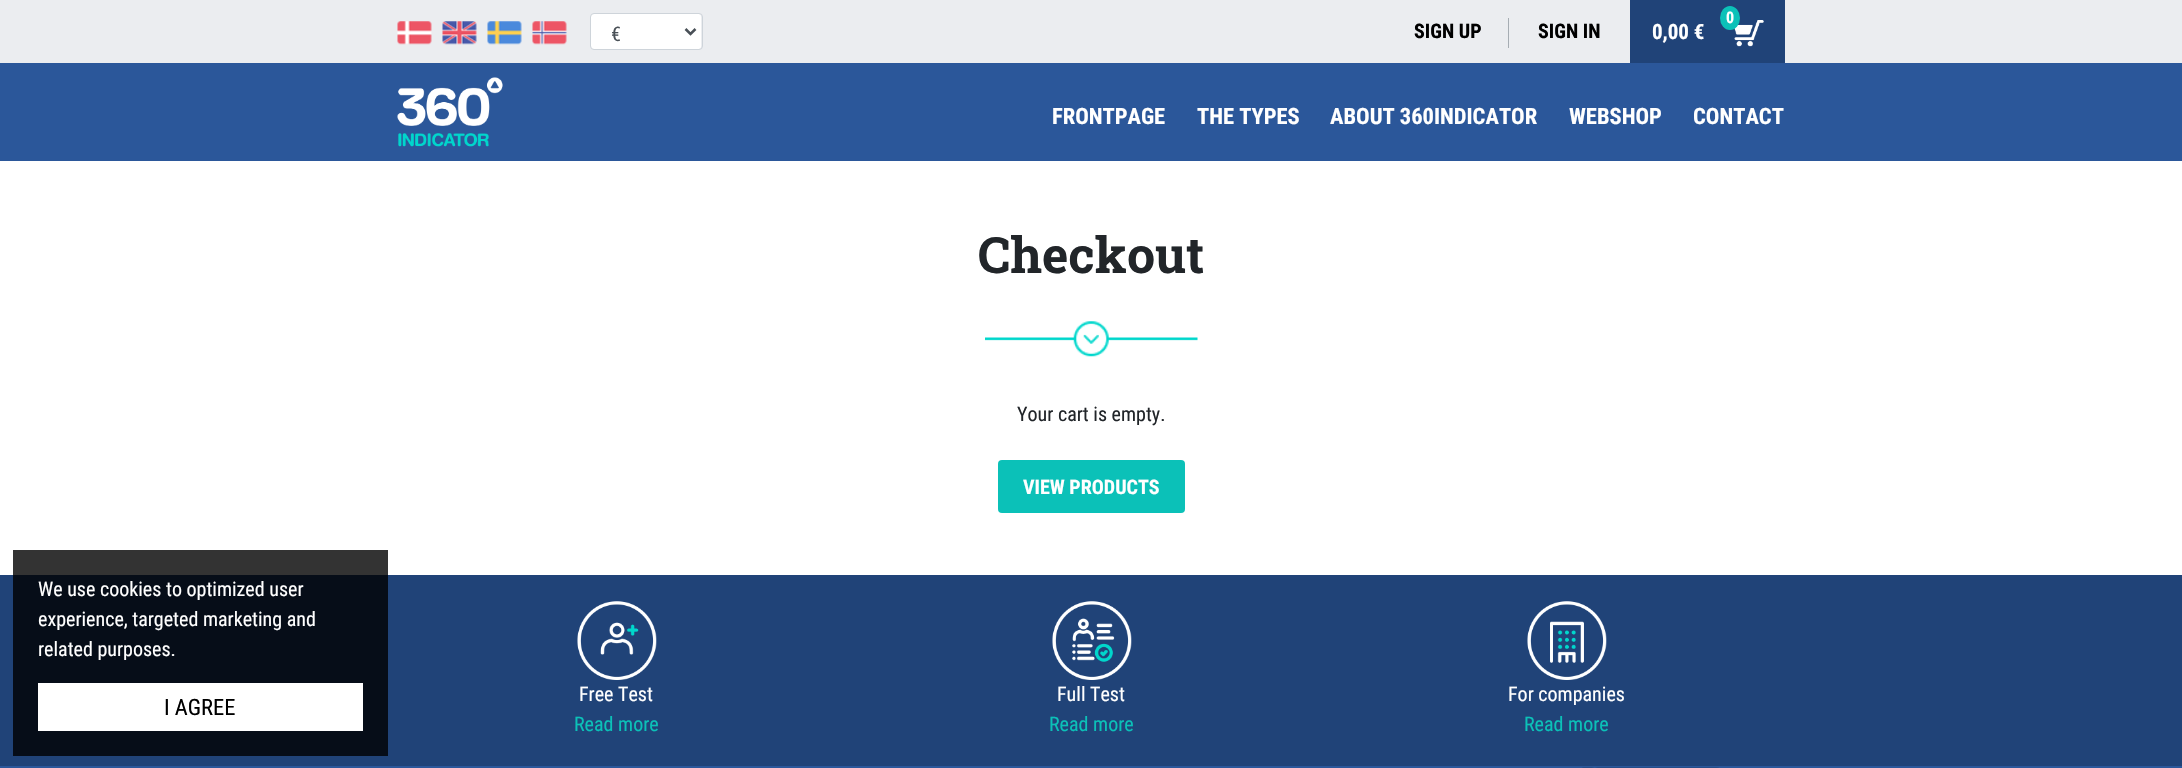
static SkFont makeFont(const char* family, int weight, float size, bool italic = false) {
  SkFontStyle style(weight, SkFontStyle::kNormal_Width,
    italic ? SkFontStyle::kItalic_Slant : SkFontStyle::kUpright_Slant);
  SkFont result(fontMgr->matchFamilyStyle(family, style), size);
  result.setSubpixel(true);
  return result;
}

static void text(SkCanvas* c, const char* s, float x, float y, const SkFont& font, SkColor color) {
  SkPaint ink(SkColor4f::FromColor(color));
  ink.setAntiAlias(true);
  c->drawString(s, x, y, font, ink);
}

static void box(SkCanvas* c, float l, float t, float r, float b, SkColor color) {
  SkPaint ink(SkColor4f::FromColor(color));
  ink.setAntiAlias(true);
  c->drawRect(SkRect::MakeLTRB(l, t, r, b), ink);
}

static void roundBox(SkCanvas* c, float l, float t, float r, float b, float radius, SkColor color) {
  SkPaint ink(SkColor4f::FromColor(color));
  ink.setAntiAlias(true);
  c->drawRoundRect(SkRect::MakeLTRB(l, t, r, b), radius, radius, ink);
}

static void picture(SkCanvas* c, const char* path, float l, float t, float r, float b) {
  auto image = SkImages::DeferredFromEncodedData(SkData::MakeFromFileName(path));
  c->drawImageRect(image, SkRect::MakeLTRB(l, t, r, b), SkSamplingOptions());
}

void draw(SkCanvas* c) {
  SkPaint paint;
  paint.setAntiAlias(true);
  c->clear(0xffffffff);
  box(c, 13, 550, 388, 575, 0xff333333);
  box(c, 0, 0, 2182, 63, 0xffebedf0);
  picture(c, "img_01.png", 397, 21, 432, 45);
  picture(c, "img_02.png", 442, 21, 477, 45);
  picture(c, "img_03.png", 487, 21, 522, 45);
  picture(c, "img_04.png", 532, 21, 567, 45);
  roundBox(c, 591, 14, 701, 49, 2.5f, 0xffffffff);
  paint.setStyle(SkPaint::kStroke_Style);
  paint.setStrokeWidth(1);
  paint.setColor(0xffced4da);
  c->drawRoundRect(SkRect::MakeLTRB(590.5f, 13.5f, 702.5f, 49.5f), 3.5f, 3.5f, paint);
  paint.setStrokeWidth(2.5f);
  paint.setColor(0xff495057);
  c->drawPath(SkPathBuilder().moveTo(685.5f, 29).lineTo(690.5f, 34).lineTo(695.5f, 29).detach(), paint);
  SkFont face1 = makeFont("Roboto Condensed", 400, 20);
  text(c, "€", 611, 41, face1, 0xff495057);
  box(c, 1508, 18, 1509, 48, 0xffa6adb3);
  SkFont face2 = makeFont("Roboto Condensed", 700, 20);
  text(c, "SIGN UP", 1414, 38, face2, 0xff000000);
  text(c, "SIGN IN", 1538, 38, face2, 0xff000000);
  box(c, 1630, 0, 1785, 63, 0xff204378);
  picture(c, "img_05.png", 1734, 20, 1764, 47);
  paint.setStyle(SkPaint::kFill_Style);
  paint.setColor(0xff0bc1b8);
  c->drawOval(SkRect::MakeLTRB(1720, 6, 1740, 30), paint);
  SkFont face3 = makeFont("Roboto Condensed", 700, 16);
  text(c, "0", 1726, 23, face3, 0xffffffff);
  SkFont face4 = makeFont("Roboto Condensed", 700, 21);
  text(c, "0,00 €", 1652, 39, face4, 0xffffffff);
  box(c, 0, 63, 2182, 161, 0xff2b579a);
  picture(c, "img_06.png", 397, 77, 503, 147);
  SkFont face5 = makeFont("Roboto Condensed", 700, 22.5f);
  text(c, "FRONTPAGE", 1052, 124, face5, 0xffffffff);
  text(c, "THE TYPES", 1197, 124, face5, 0xffffffff);
  text(c, "ABOUT 360INDICATOR", 1330, 124, face5, 0xffffffff);
  text(c, "WEBSHOP", 1569, 124, face5, 0xffffffff);
  text(c, "CONTACT", 1693, 124, face5, 0xffffffff);
  SkFont face6 = makeFont("Roboto Slab", 700, 50);
  text(c, "Checkout", 978, 273, face6, 0xff212529);
  picture(c, "img_07.png", 985, 321, 1198, 357);
  text(c, "Your cart is empty.", 1017, 421, face1, 0xff212529);
  roundBox(c, 998, 460, 1185, 513, 4, 0xff0bc1b8);
  text(c, "VIEW PRODUCTS", 1023, 494, face2, 0xffffffff);
  box(c, 0, 575, 2182, 766, 0xff204378);
  box(c, 13, 575, 388, 756, 0xff060d18);
  text(c, "We use cookies to optimized user", 38, 596, face1, 0xffffffff);
  text(c, "experience, targeted marketing and", 38, 626, face1, 0xffffffff);
  text(c, "related purposes.", 38, 656, face1, 0xffffffff);
  box(c, 38, 683, 363, 731, 0xffffffff);
  SkFont face7 = makeFont("Roboto Condensed", 400, 22.5f);
  text(c, "I AGREE", 164, 715, face7, 0xff000000);
  picture(c, "img_08.png", 577, 601, 657, 680);
  text(c, "Free Test", 579, 701, face1, 0xffffffff);
  text(c, "Read more", 574, 731, face1, 0xff0bc1b8);
  picture(c, "img_09.png", 1052, 601, 1132, 680);
  text(c, "Full Test", 1057, 701, face1, 0xffffffff);
  text(c, "Read more", 1049, 731, face1, 0xff0bc1b8);
  picture(c, "img_10.png", 1527, 601, 1607, 680);
  text(c, "For companies", 1508, 701, face1, 0xffffffff);
  text(c, "Read more", 1524, 731, face1, 0xff0bc1b8);
  box(c, 0, 766, 2182, 768, 0xff2b579a);
  picture(c, "img_11.png", 1582, 767, 1719, 768);
}
